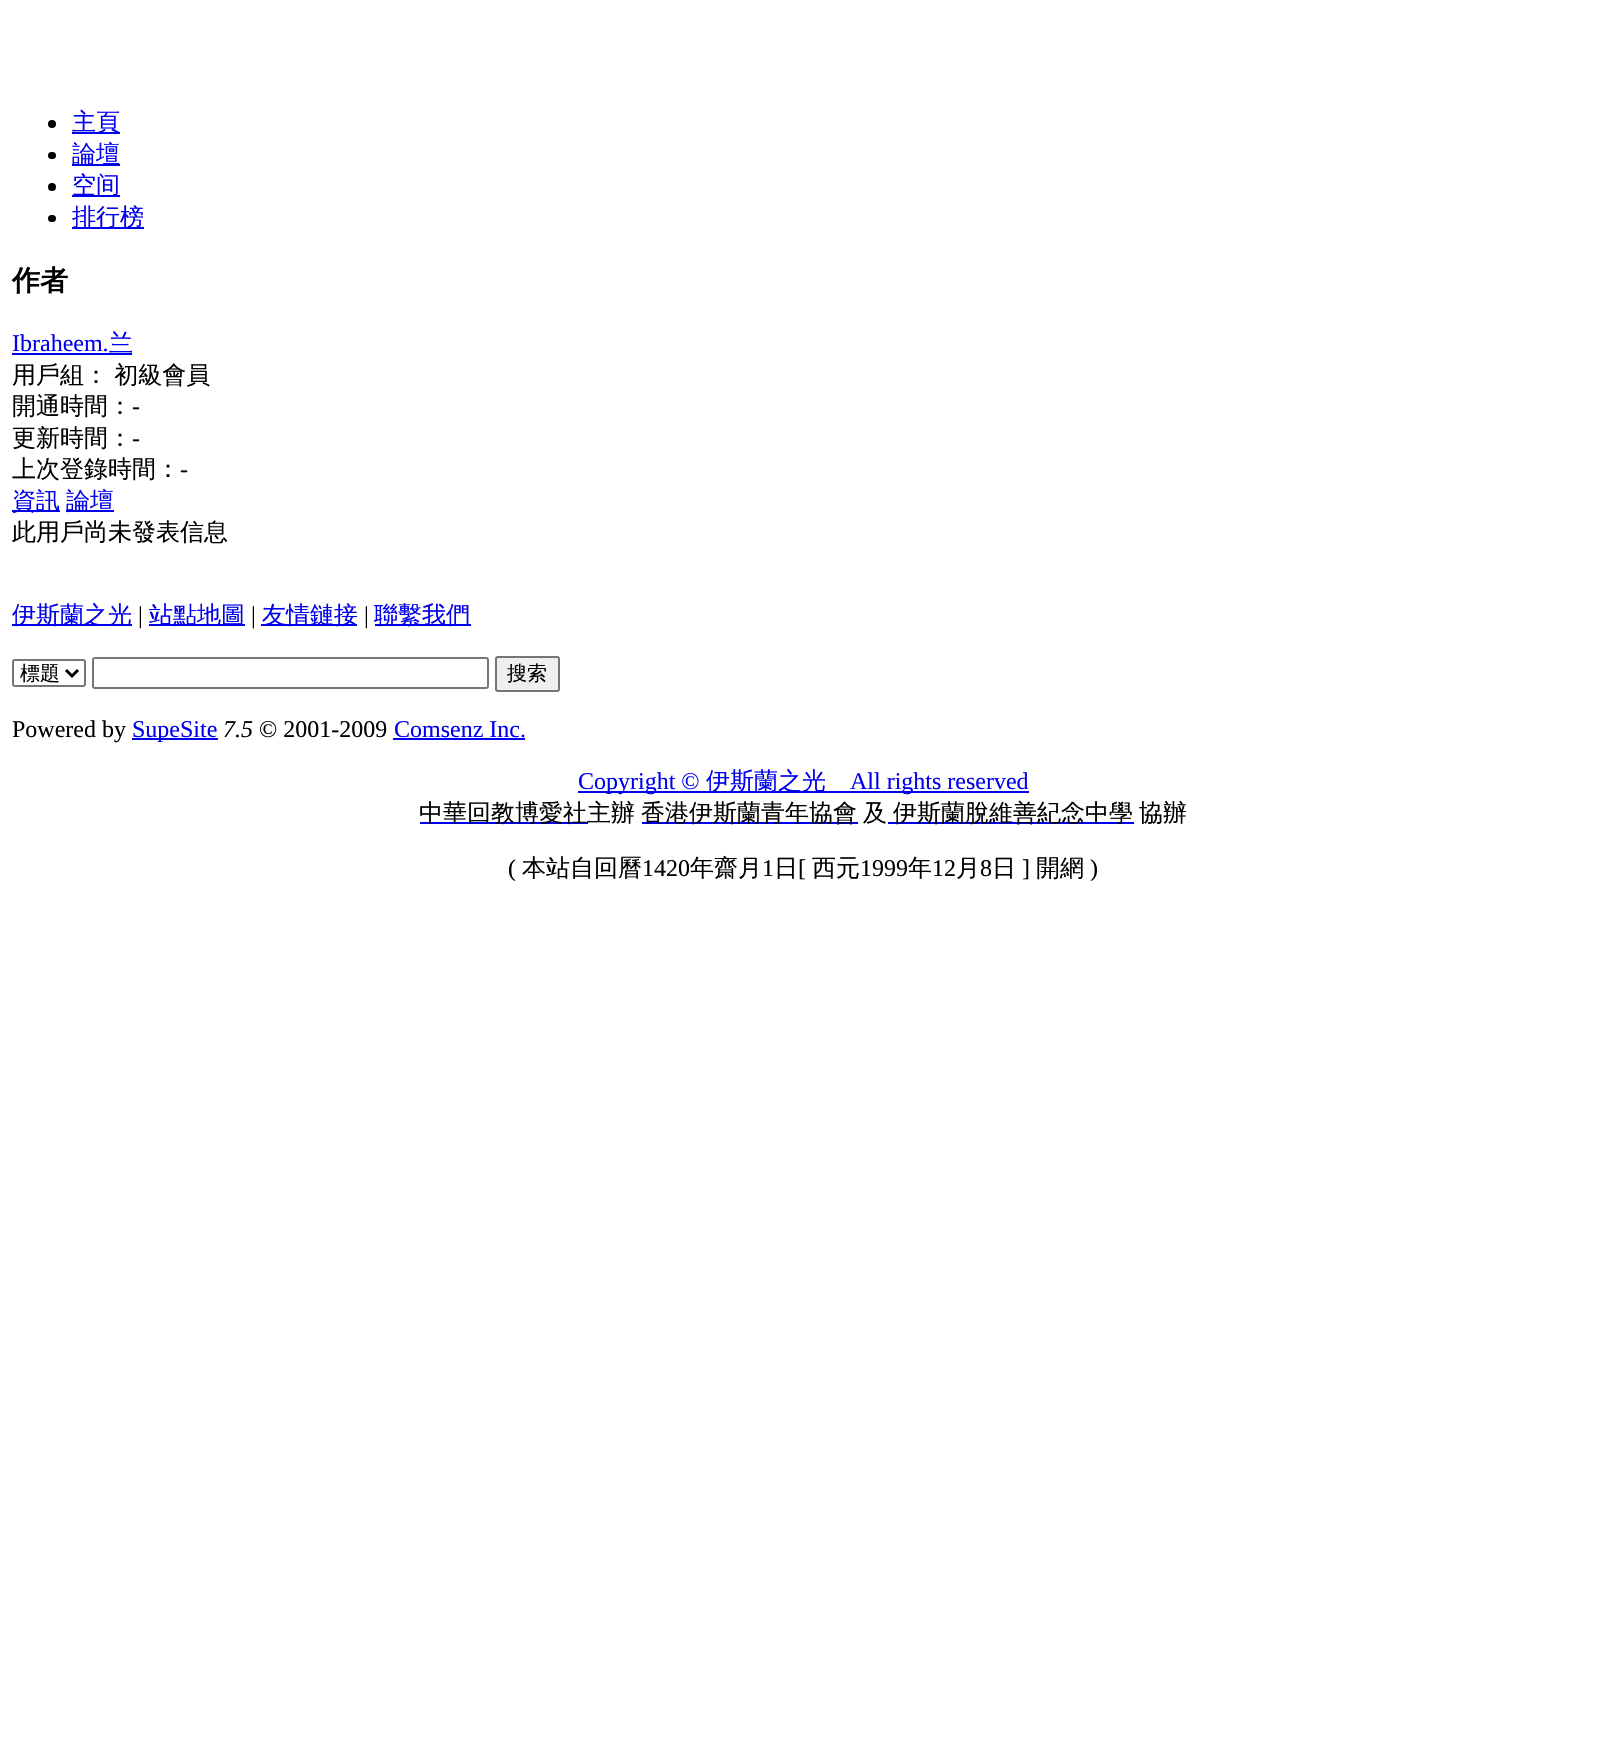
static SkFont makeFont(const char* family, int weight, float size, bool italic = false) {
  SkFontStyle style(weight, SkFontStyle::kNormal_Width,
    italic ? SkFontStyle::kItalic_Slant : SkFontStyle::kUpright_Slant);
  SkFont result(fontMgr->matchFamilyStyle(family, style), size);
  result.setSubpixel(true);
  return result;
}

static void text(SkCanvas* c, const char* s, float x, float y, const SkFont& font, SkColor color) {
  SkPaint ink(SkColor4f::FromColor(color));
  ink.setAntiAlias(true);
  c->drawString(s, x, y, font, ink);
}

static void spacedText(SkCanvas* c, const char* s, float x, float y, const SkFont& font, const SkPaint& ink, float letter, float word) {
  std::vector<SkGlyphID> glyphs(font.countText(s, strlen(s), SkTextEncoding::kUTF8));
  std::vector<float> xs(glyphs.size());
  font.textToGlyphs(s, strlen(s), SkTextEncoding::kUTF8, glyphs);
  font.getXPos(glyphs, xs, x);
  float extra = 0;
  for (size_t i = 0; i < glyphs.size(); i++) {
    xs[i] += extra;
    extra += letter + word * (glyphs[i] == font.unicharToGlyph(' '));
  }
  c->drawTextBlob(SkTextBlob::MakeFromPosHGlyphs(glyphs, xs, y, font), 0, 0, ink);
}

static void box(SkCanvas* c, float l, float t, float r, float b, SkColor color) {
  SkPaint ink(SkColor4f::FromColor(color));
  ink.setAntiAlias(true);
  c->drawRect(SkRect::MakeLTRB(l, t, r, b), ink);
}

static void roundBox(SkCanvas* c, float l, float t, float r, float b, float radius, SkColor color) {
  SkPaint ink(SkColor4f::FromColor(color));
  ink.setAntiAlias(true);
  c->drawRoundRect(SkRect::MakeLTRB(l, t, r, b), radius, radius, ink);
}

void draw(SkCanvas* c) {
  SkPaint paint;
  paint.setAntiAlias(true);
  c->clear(0xffffffff);
  paint.setColor(0xff000000);
  c->drawCircle(52, 124, 4, paint);
  box(c, 72, 132, 120, 134, 0xff0000ee);
  SkFont face1 = makeFont("WenQuanYi Zen Hei", 500, 24);
  text(c, "主頁", 72, 130, face1, 0xff0000ee);
  roundBox(c, 48, 152, 56, 159, 3.5f, 0xff000000);
  box(c, 72, 164, 120, 166, 0xff0000ee);
  text(c, "論壇", 72, 162, face1, 0xff0000ee);
  c->drawCircle(52, 187, 4, paint);
  box(c, 72, 195, 120, 197, 0xff0000ee);
  text(c, "空间", 72, 193, face1, 0xff0000ee);
  roundBox(c, 48, 215, 56, 222, 3.5f, 0xff000000);
  box(c, 72, 227, 144, 229, 0xff0000ee);
  text(c, "排行榜", 72, 225, face1, 0xff0000ee);
  SkFont face2 = makeFont("WenQuanYi Zen Hei", 700, 28);
  text(c, "作者", 12, 290, face2, 0xff000000);
  SkFont face3 = makeFont("Liberation Serif", 400, 24);
  text(c, "Ibraheem.", 12, 351, face3, 0xff0000ee);
  box(c, 12, 353, 132, 355, 0xff0000ee);
  text(c, "兰", 109, 351, face1, 0xff0000ee);
  spacedText(c, "用戶組： 初級會員", 12, 383, face1, paint, 0, -1);
  text(c, "開通時間：", 12, 414, face1, 0xff000000);
  text(c, "-", 132, 414, face3, 0xff000000);
  text(c, "更新時間：", 12, 446, face1, 0xff000000);
  text(c, "-", 132, 446, face3, 0xff000000);
  text(c, "上次登錄時間：", 12, 477, face1, 0xff000000);
  text(c, "-", 180, 477, face3, 0xff000000);
  box(c, 12, 510, 60, 512, 0xff0000ee);
  text(c, "資訊", 12, 509, face1, 0xff0000ee);
  box(c, 66, 510, 114, 512, 0xff0000ee);
  text(c, "論壇", 66, 509, face1, 0xff0000ee);
  text(c, "此用戶尚未發表信息", 12, 540, face1, 0xff000000);
  box(c, 12, 624, 132, 626, 0xff0000ee);
  text(c, "伊斯蘭之光", 12, 623, face1, 0xff0000ee);
  text(c, "|", 138, 623, face3, 0xff000000);
  box(c, 149, 624, 245, 626, 0xff0000ee);
  text(c, "站點地圖", 149, 623, face1, 0xff0000ee);
  text(c, "|", 251, 623, face3, 0xff000000);
  box(c, 261, 624, 357, 626, 0xff0000ee);
  text(c, "友情鏈接", 262, 623, face1, 0xff0000ee);
  text(c, "|", 364, 623, face3, 0xff000000);
  box(c, 375, 624, 471, 626, 0xff0000ee);
  text(c, "聯繫我們", 374, 623, face1, 0xff0000ee);
  paint.setStyle(SkPaint::kStroke_Style);
  paint.setStrokeWidth(2);
  paint.setColor(0xff767676);
  c->drawRoundRect(SkRect::MakeLTRB(13, 660, 85, 686), 2, 2, paint);
  paint.setStrokeWidth(3);
  paint.setColor(0xff000000);
  c->drawPath(SkPathBuilder().moveTo(66, 670).lineTo(72, 676).lineTo(78, 670).detach(), paint);
  SkFont face4 = makeFont("WenQuanYi Zen Hei", 500, 20);
  text(c, "標題", 20, 680, face4, 0xff000000);
  paint.setStrokeWidth(2);
  paint.setColor(0xff767676);
  c->drawRoundRect(SkRect::MakeLTRB(93, 658, 488, 688), 2, 2, paint);
  paint.setStyle(SkPaint::kFill_Style);
  paint.setColor(0xffefefef);
  c->drawRoundRect(SkRect::MakeLTRB(496, 657, 559, 691), 2, 2, paint);
  paint.setStyle(SkPaint::kStroke_Style);
  paint.setColor(0xff767676);
  c->drawRoundRect(SkRect::MakeLTRB(496, 657, 559, 691), 2, 2, paint);
  text(c, "搜索", 507, 680, face4, 0xff000000);
  text(c, "Powered by", 12, 737, face3, 0xff000000);
  box(c, 132, 738, 218, 740, 0xff0000ee);
  text(c, "SupeSite", 132, 737, face3, 0xff0000ee);
  SkFont face5 = makeFont("Liberation Serif", 400, 24, true);
  text(c, "7.5", 223, 737, face5, 0xff000000);
  text(c, "© 2001-2009", 259, 737, face3, 0xff000000);
  text(c, "Comsenz Inc.", 394, 737, face3, 0xff0000ee);
  box(c, 393, 738, 525, 740, 0xff0000ee);
  box(c, 578, 791, 1029, 793, 0xff0000ee);
  text(c, "Copyright ©", 578, 789, face3, 0xff0000ee);
  text(c, "伊斯蘭之光", 706, 789, face1, 0xff0000ee);
  text(c, "All rights reserved", 850, 789, face3, 0xff0000ee);
  box(c, 420, 822, 588, 824, 0xff0000ee);
  text(c, "中華回教博愛社主辦", 419, 821, face1, 0xff000000);
  box(c, 642, 822, 858, 824, 0xff0000ee);
  text(c, "香港伊斯蘭青年協會", 641, 821, face1, 0xff000000);
  text(c, "及", 863, 821, face1, 0xff000000);
  box(c, 888, 822, 1134, 824, 0xff0000ee);
  text(c, "伊斯蘭脫維善紀念中學", 893, 821, face1, 0xff000000);
  text(c, "協辦", 1139, 821, face1, 0xff000000);
  text(c, "(", 508, 876, face3, 0xff000000);
  text(c, "本站自回曆", 522, 876, face1, 0xff000000);
  text(c, "1420", 642, 876, face3, 0xff000000);
  text(c, "年齋月", 690, 876, face1, 0xff000000);
  text(c, "1", 762, 876, face3, 0xff000000);
  text(c, "日", 774, 876, face1, 0xff000000);
  text(c, "[", 798, 876, face3, 0xff000000);
  text(c, "西元", 812, 876, face1, 0xff000000);
  text(c, "1999", 860, 876, face3, 0xff000000);
  text(c, "年", 908, 876, face1, 0xff000000);
  text(c, "12", 932, 876, face3, 0xff000000);
  text(c, "月", 956, 876, face1, 0xff000000);
  text(c, "8", 980, 876, face3, 0xff000000);
  text(c, "日", 992, 876, face1, 0xff000000);
  text(c, "]", 1022, 876, face3, 0xff000000);
  text(c, "開網", 1036, 876, face1, 0xff000000);
  text(c, ")", 1090, 876, face3, 0xff000000);
}
